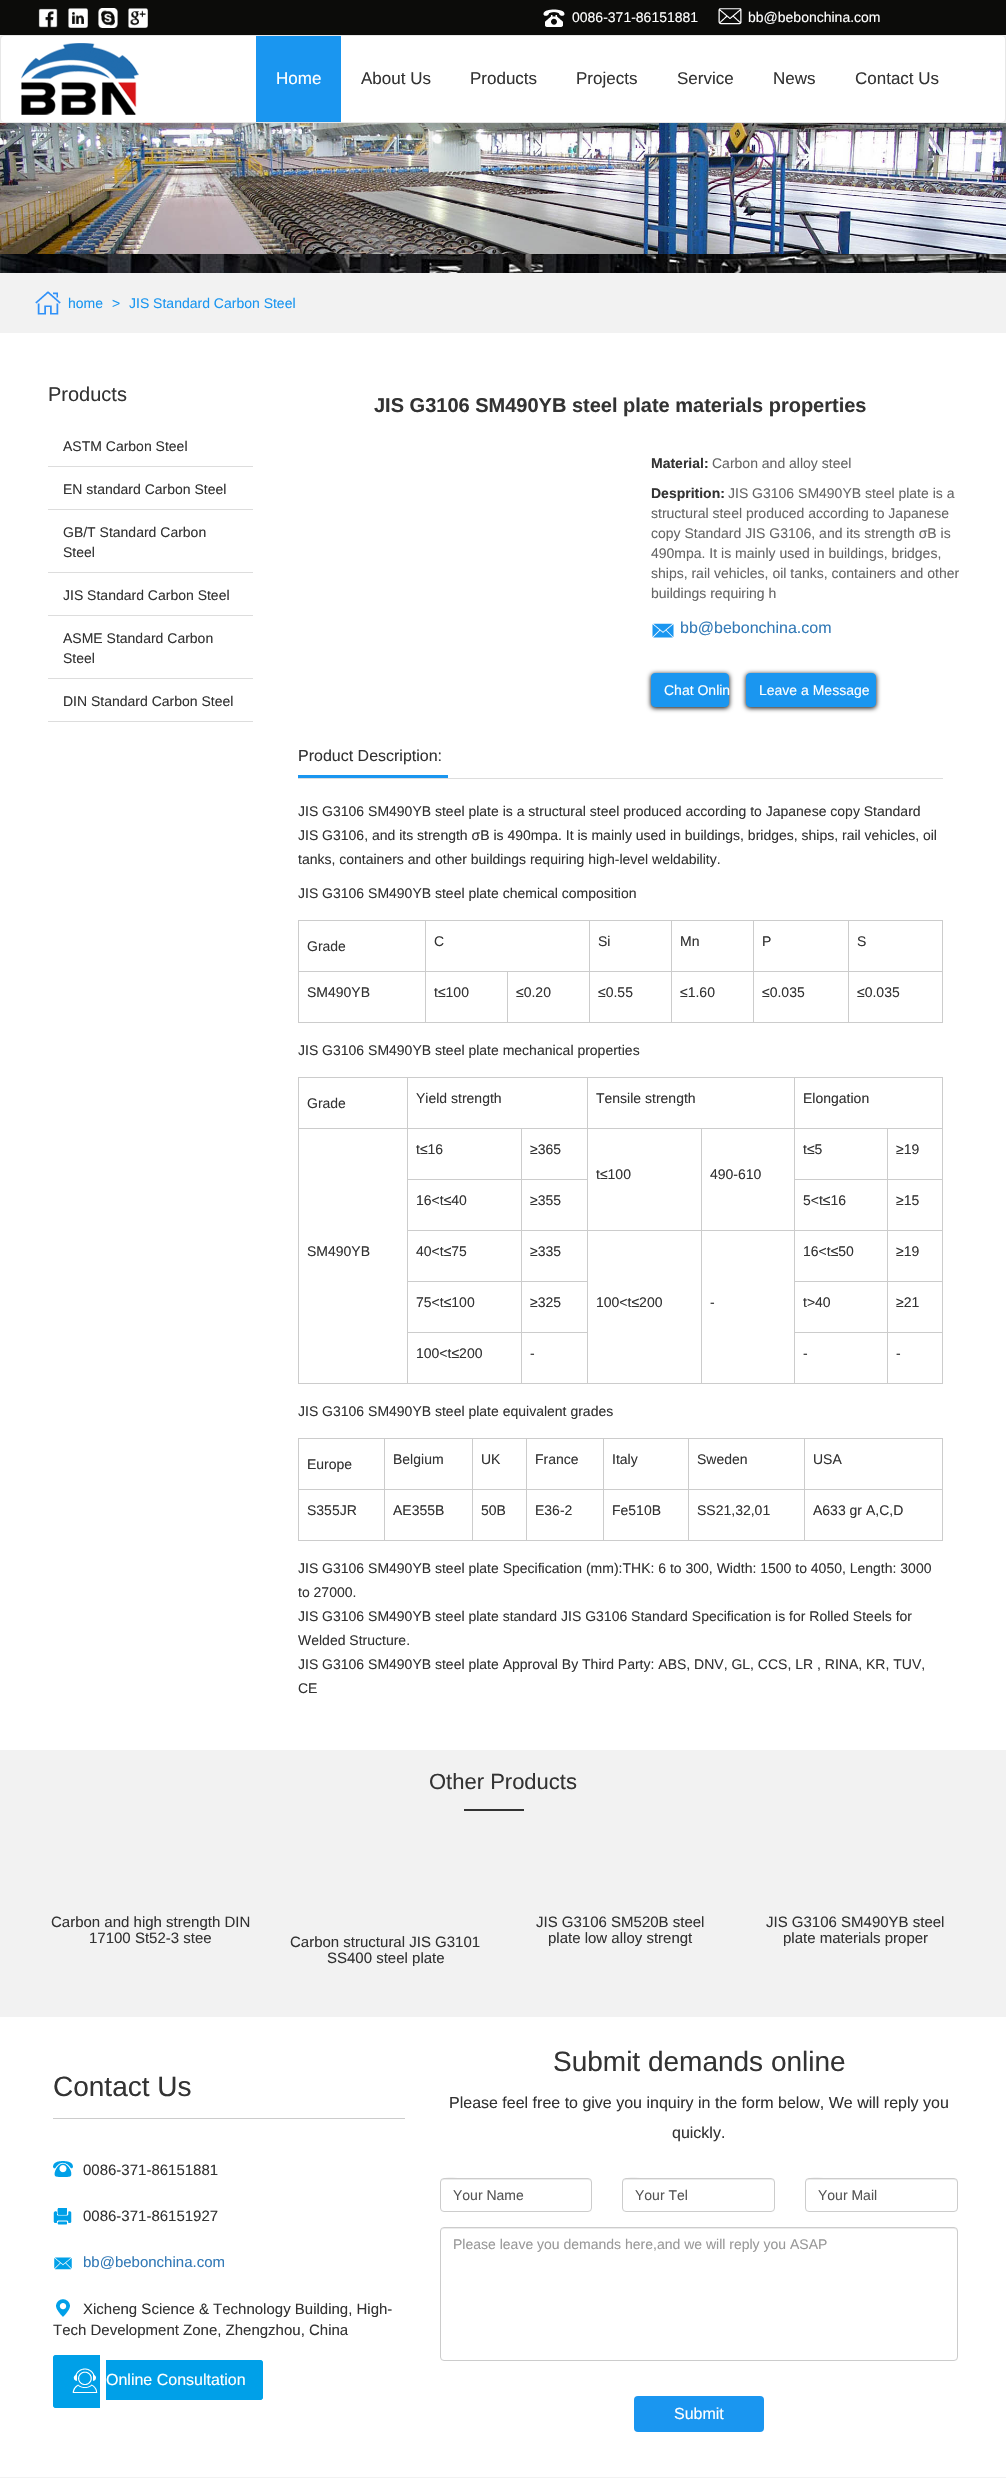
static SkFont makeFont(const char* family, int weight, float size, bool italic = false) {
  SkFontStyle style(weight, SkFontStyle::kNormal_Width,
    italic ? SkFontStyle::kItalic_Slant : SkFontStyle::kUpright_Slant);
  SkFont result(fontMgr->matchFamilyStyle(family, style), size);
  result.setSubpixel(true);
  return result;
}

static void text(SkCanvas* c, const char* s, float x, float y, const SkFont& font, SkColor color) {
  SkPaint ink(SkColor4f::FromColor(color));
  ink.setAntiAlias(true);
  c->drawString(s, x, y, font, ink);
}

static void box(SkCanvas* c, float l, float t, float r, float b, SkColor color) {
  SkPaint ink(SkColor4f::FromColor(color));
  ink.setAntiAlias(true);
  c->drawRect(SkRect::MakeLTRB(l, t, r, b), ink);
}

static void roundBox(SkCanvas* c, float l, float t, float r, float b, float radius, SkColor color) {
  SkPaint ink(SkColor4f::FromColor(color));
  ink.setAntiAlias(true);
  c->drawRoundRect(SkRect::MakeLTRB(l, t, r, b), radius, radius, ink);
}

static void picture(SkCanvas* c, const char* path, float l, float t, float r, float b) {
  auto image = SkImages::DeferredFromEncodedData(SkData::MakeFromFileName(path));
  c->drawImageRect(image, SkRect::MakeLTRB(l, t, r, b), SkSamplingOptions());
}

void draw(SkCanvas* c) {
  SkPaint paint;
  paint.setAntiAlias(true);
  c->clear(0xfff2f2f2);
  box(c, 0, 0, 1006, 35, 0xff0c0c0a);
  picture(c, "img_01.png", 38, 8, 58, 28);
  picture(c, "img_02.png", 68, 8, 88, 28);
  picture(c, "img_03.png", 98, 8, 118, 28);
  picture(c, "img_04.png", 128, 8, 148, 28);
  picture(c, "img_05.png", 543, 9, 565, 27);
  SkFont face1 = makeFont("Liberation Sans", 400, 14);
  text(c, "0086-371-86151881", 572, 22, face1, 0xffffffff);
  picture(c, "img_06.png", 718, 8, 742, 25);
  text(c, "bb@bebonchina.com", 748, 22, face1, 0xffffffff);
  paint.setColor(0xffffffff);
  c->drawRoundRect(SkRect::MakeLTRB(0.5f, 35.5f, 1005.5f, 122.5f), 3.5f, 3.5f, paint);
  paint.setStyle(SkPaint::kStroke_Style);
  paint.setStrokeWidth(1);
  paint.setColor(0xffe7e7e7);
  c->drawRoundRect(SkRect::MakeLTRB(0.5f, 35.5f, 1005.5f, 122.5f), 3.5f, 3.5f, paint);
  picture(c, "img_07.png", 21, 43, 139, 115);
  box(c, 256, 36, 341, 122, 0xff1a96f0);
  SkFont face2 = makeFont("Liberation Sans", 400, 17);
  text(c, "Home", 276, 84, face2, 0xffffffff);
  text(c, "About Us", 361, 84, face2, 0xff333333);
  text(c, "Products", 470, 84, face2, 0xff333333);
  text(c, "Projects", 576, 84, face2, 0xff333333);
  text(c, "Service", 677, 84, face2, 0xff333333);
  text(c, "News", 773, 84, face2, 0xff333333);
  text(c, "Contact Us", 855, 84, face2, 0xff333333);
  picture(c, "img_08.png", 0, 254, 1006, 273);
  picture(c, "img_09.png", 0, 123, 1006, 254);
  picture(c, "img_10.png", 35, 291, 61, 315);
  text(c, "home", 68, 308, face1, 0xff1a96f0);
  text(c, ">", 112, 308, face1, 0xff1a96f0);
  text(c, "JIS Standard Carbon Steel", 129, 308, face1, 0xff1a96f0);
  box(c, 0, 333, 1006, 1750, 0xffffffff);
  SkFont face3 = makeFont("Liberation Sans", 400, 20);
  text(c, "Products", 48, 401, face3, 0xff333333);
  box(c, 48, 466, 253, 467, 0xffdddddd);
  text(c, "ASTM Carbon Steel", 63, 451, face1, 0xff333333);
  box(c, 48, 509, 253, 510, 0xffdddddd);
  text(c, "EN standard Carbon Steel", 63, 494, face1, 0xff333333);
  box(c, 48, 572, 253, 573, 0xffdddddd);
  text(c, "GB/T Standard Carbon", 63, 537, face1, 0xff333333);
  text(c, "Steel", 63, 557, face1, 0xff333333);
  box(c, 48, 615, 253, 616, 0xffdddddd);
  text(c, "JIS Standard Carbon Steel", 63, 600, face1, 0xff333333);
  box(c, 48, 678, 253, 679, 0xffdddddd);
  text(c, "ASME Standard Carbon", 63, 643, face1, 0xff333333);
  text(c, "Steel", 63, 663, face1, 0xff333333);
  box(c, 48, 721, 253, 722, 0xffdddddd);
  text(c, "DIN Standard Carbon Steel", 63, 706, face1, 0xff333333);
  SkFont face4 = makeFont("Liberation Sans", 700, 20);
  text(c, "JIS G3106 SM490YB steel plate materials properties", 374, 412, face4, 0xff333333);
  SkFont face5 = makeFont("Liberation Sans", 700, 14);
  text(c, "Material:", 651, 468, face5, 0xff333333);
  text(c, "Carbon and alloy steel", 712, 468, face1, 0xff666666);
  text(c, "Desprition:", 651, 498, face5, 0xff333333);
  text(c, "JIS G3106 SM490YB steel plate is a", 728, 498, face1, 0xff666666);
  text(c, "structural steel produced according to Japanese", 651, 518, face1, 0xff666666);
  text(c, "copy Standard JIS G3106, and its strength σB is", 651, 538, face1, 0xff666666);
  text(c, "490mpa. It is mainly used in buildings, bridges,", 651, 558, face1, 0xff666666);
  text(c, "ships, rail vehicles, oil tanks, containers and other", 651, 578, face1, 0xff666666);
  text(c, "buildings requiring h", 651, 598, face1, 0xff666666);
  picture(c, "img_11.png", 652, 623, 674, 638);
  SkFont face6 = makeFont("Liberation Sans", 400, 16);
  text(c, "bb@bebonchina.com", 680, 633, face6, 0xff337ab7);
  paint.setStyle(SkPaint::kFill_Style);
  paint.setColor(0xff000000);
  paint.setMaskFilter(SkMaskFilter::MakeBlur(kNormal_SkBlurStyle, 2.5f));
  c->drawRoundRect(SkRect::MakeLTRB(651, 674, 729, 708), 4, 4, paint);
  paint.setMaskFilter(nullptr);
  paint.setColor(0xff1a96f0);
  c->drawRoundRect(SkRect::MakeLTRB(651.5f, 673.5f, 728.5f, 706.5f), 3.5f, 3.5f, paint);
  paint.setStyle(SkPaint::kStroke_Style);
  c->drawRoundRect(SkRect::MakeLTRB(651.5f, 673.5f, 728.5f, 706.5f), 3.5f, 3.5f, paint);
  text(c, "Chat Onlin", 664, 695, face1, 0xffffffff);
  paint.setStyle(SkPaint::kFill_Style);
  paint.setColor(0xff000000);
  paint.setMaskFilter(SkMaskFilter::MakeBlur(kNormal_SkBlurStyle, 2.5f));
  c->drawRoundRect(SkRect::MakeLTRB(746, 674, 876, 708), 4, 4, paint);
  paint.setMaskFilter(nullptr);
  paint.setColor(0xff1a96f0);
  c->drawRoundRect(SkRect::MakeLTRB(746.5f, 673.5f, 875.5f, 706.5f), 3.5f, 3.5f, paint);
  paint.setStyle(SkPaint::kStroke_Style);
  c->drawRoundRect(SkRect::MakeLTRB(746.5f, 673.5f, 875.5f, 706.5f), 3.5f, 3.5f, paint);
  text(c, "Leave a Message", 759, 695, face1, 0xffffffff);
  box(c, 298, 778, 943, 779, 0xffdddddd);
  text(c, "Product Description:", 298, 761, face6, 0xff333333);
  box(c, 298, 775, 448, 778, 0xff1a96f0);
  text(c, "JIS G3106 SM490YB steel plate is a structural steel produced according to Japanese copy Standard", 298, 816, face1, 0xff333333);
  text(c, "JIS G3106, and its strength σB is 490mpa. It is mainly used in buildings, bridges, ships, rail vehicles, oil", 298, 840, face1, 0xff333333);
  text(c, "tanks, containers and other buildings requiring high-level weldability.", 298, 864, face1, 0xff333333);
  text(c, "JIS G3106 SM490YB steel plate chemical composition", 298, 898, face1, 0xff333333);
  box(c, 298, 920, 943, 921, 0xffcccccc);
  box(c, 942, 920, 943, 1023, 0xffcccccc);
  box(c, 298, 1022, 943, 1023, 0xffcccccc);
  box(c, 298, 920, 299, 1023, 0xffcccccc);
  text(c, "Grade", 307, 951, face1, 0xff333333);
  box(c, 848, 971, 943, 972, 0xffcccccc);
  box(c, 848, 971, 849, 1023, 0xffcccccc);
  box(c, 753, 971, 849, 972, 0xffcccccc);
  box(c, 753, 971, 754, 1023, 0xffcccccc);
  box(c, 671, 971, 754, 972, 0xffcccccc);
  box(c, 671, 971, 672, 1023, 0xffcccccc);
  box(c, 589, 971, 672, 972, 0xffcccccc);
  box(c, 589, 971, 590, 1023, 0xffcccccc);
  box(c, 507, 971, 590, 972, 0xffcccccc);
  box(c, 507, 971, 508, 1023, 0xffcccccc);
  box(c, 425, 971, 508, 972, 0xffcccccc);
  box(c, 425, 971, 426, 1023, 0xffcccccc);
  box(c, 298, 971, 426, 972, 0xffcccccc);
  box(c, 425, 920, 426, 972, 0xffcccccc);
  text(c, "C", 434, 946, face1, 0xff333333);
  box(c, 589, 920, 590, 972, 0xffcccccc);
  text(c, "Si", 598, 946, face1, 0xff333333);
  box(c, 671, 920, 672, 972, 0xffcccccc);
  text(c, "Mn", 680, 946, face1, 0xff333333);
  box(c, 753, 920, 754, 972, 0xffcccccc);
  text(c, "P", 762, 946, face1, 0xff333333);
  box(c, 848, 920, 849, 972, 0xffcccccc);
  text(c, "S", 857, 946, face1, 0xff333333);
  text(c, "SM490YB", 307, 997, face1, 0xff333333);
  text(c, "t≤100", 434, 997, face1, 0xff333333);
  text(c, "≤0.20", 516, 997, face1, 0xff333333);
  text(c, "≤0.55", 598, 997, face1, 0xff333333);
  text(c, "≤1.60", 680, 997, face1, 0xff333333);
  text(c, "≤0.035", 762, 997, face1, 0xff333333);
  text(c, "≤0.035", 857, 997, face1, 0xff333333);
  text(c, "JIS G3106 SM490YB steel plate mechanical properties", 298, 1055, face1, 0xff333333);
  box(c, 298, 1077, 943, 1078, 0xffcccccc);
  box(c, 942, 1077, 943, 1384, 0xffcccccc);
  box(c, 298, 1383, 943, 1384, 0xffcccccc);
  box(c, 298, 1077, 299, 1384, 0xffcccccc);
  text(c, "Grade", 307, 1108, face1, 0xff333333);
  box(c, 887, 1128, 943, 1129, 0xffcccccc);
  box(c, 887, 1179, 943, 1180, 0xffcccccc);
  box(c, 887, 1230, 943, 1231, 0xffcccccc);
  box(c, 887, 1281, 943, 1282, 0xffcccccc);
  box(c, 887, 1332, 943, 1333, 0xffcccccc);
  box(c, 887, 1332, 888, 1384, 0xffcccccc);
  box(c, 794, 1332, 888, 1333, 0xffcccccc);
  box(c, 887, 1281, 888, 1333, 0xffcccccc);
  box(c, 794, 1281, 888, 1282, 0xffcccccc);
  box(c, 887, 1230, 888, 1282, 0xffcccccc);
  box(c, 794, 1230, 888, 1231, 0xffcccccc);
  box(c, 887, 1179, 888, 1231, 0xffcccccc);
  box(c, 794, 1179, 888, 1180, 0xffcccccc);
  box(c, 887, 1128, 888, 1180, 0xffcccccc);
  box(c, 794, 1128, 888, 1129, 0xffcccccc);
  box(c, 794, 1332, 795, 1384, 0xffcccccc);
  box(c, 794, 1281, 795, 1333, 0xffcccccc);
  box(c, 794, 1230, 795, 1282, 0xffcccccc);
  box(c, 701, 1230, 795, 1231, 0xffcccccc);
  box(c, 794, 1179, 795, 1231, 0xffcccccc);
  box(c, 794, 1128, 795, 1180, 0xffcccccc);
  box(c, 701, 1128, 795, 1129, 0xffcccccc);
  box(c, 701, 1230, 702, 1384, 0xffcccccc);
  box(c, 587, 1230, 702, 1231, 0xffcccccc);
  box(c, 701, 1128, 702, 1231, 0xffcccccc);
  box(c, 587, 1128, 702, 1129, 0xffcccccc);
  box(c, 521, 1179, 588, 1180, 0xffcccccc);
  box(c, 521, 1281, 588, 1282, 0xffcccccc);
  box(c, 521, 1332, 588, 1333, 0xffcccccc);
  box(c, 587, 1230, 588, 1384, 0xffcccccc);
  box(c, 521, 1230, 588, 1231, 0xffcccccc);
  box(c, 587, 1128, 588, 1231, 0xffcccccc);
  box(c, 521, 1128, 588, 1129, 0xffcccccc);
  box(c, 521, 1332, 522, 1384, 0xffcccccc);
  box(c, 407, 1332, 522, 1333, 0xffcccccc);
  box(c, 521, 1281, 522, 1333, 0xffcccccc);
  box(c, 407, 1281, 522, 1282, 0xffcccccc);
  box(c, 521, 1230, 522, 1282, 0xffcccccc);
  box(c, 407, 1230, 522, 1231, 0xffcccccc);
  box(c, 521, 1179, 522, 1231, 0xffcccccc);
  box(c, 407, 1179, 522, 1180, 0xffcccccc);
  box(c, 521, 1128, 522, 1180, 0xffcccccc);
  box(c, 407, 1128, 522, 1129, 0xffcccccc);
  box(c, 407, 1332, 408, 1384, 0xffcccccc);
  box(c, 407, 1281, 408, 1333, 0xffcccccc);
  box(c, 407, 1230, 408, 1282, 0xffcccccc);
  box(c, 407, 1179, 408, 1231, 0xffcccccc);
  box(c, 407, 1128, 408, 1180, 0xffcccccc);
  box(c, 298, 1128, 408, 1129, 0xffcccccc);
  box(c, 407, 1077, 408, 1129, 0xffcccccc);
  text(c, "Yield strength", 416, 1103, face1, 0xff333333);
  box(c, 587, 1077, 588, 1129, 0xffcccccc);
  text(c, "Tensile strength", 596, 1103, face1, 0xff333333);
  box(c, 794, 1077, 795, 1129, 0xffcccccc);
  text(c, "Elongation", 803, 1103, face1, 0xff333333);
  text(c, "t≤16", 416, 1154, face1, 0xff333333);
  text(c, "≥365", 530, 1154, face1, 0xff333333);
  text(c, "t≤5", 803, 1154, face1, 0xff333333);
  text(c, "≥19", 896, 1154, face1, 0xff333333);
  text(c, "t≤100", 596, 1179, face1, 0xff333333);
  text(c, "490-610", 710, 1179, face1, 0xff333333);
  text(c, "SM490YB", 307, 1256, face1, 0xff333333);
  text(c, "16<t≤40", 416, 1205, face1, 0xff333333);
  text(c, "≥355", 530, 1205, face1, 0xff333333);
  text(c, "5<t≤16", 803, 1205, face1, 0xff333333);
  text(c, "≥15", 896, 1205, face1, 0xff333333);
  text(c, "40<t≤75", 416, 1256, face1, 0xff333333);
  text(c, "≥335", 530, 1256, face1, 0xff333333);
  text(c, "16<t≤50", 803, 1256, face1, 0xff333333);
  text(c, "≥19", 896, 1256, face1, 0xff333333);
  text(c, "100<t≤200", 596, 1307, face1, 0xff333333);
  text(c, "-", 710, 1307, face1, 0xff333333);
  text(c, "75<t≤100", 416, 1307, face1, 0xff333333);
  text(c, "≥325", 530, 1307, face1, 0xff333333);
  text(c, "t>40", 803, 1307, face1, 0xff333333);
  text(c, "≥21", 896, 1307, face1, 0xff333333);
  text(c, "100<t≤200", 416, 1358, face1, 0xff333333);
  text(c, "-", 530, 1358, face1, 0xff333333);
  text(c, "-", 803, 1358, face1, 0xff333333);
  text(c, "-", 896, 1358, face1, 0xff333333);
  text(c, "JIS G3106 SM490YB steel plate equivalent grades", 298, 1416, face1, 0xff333333);
  box(c, 298, 1438, 943, 1439, 0xffcccccc);
  box(c, 942, 1438, 943, 1541, 0xffcccccc);
  box(c, 298, 1540, 943, 1541, 0xffcccccc);
  box(c, 298, 1438, 299, 1541, 0xffcccccc);
  text(c, "Europe", 307, 1469, face1, 0xff333333);
  box(c, 804, 1489, 943, 1490, 0xffcccccc);
  box(c, 804, 1489, 805, 1541, 0xffcccccc);
  box(c, 688, 1489, 805, 1490, 0xffcccccc);
  box(c, 688, 1489, 689, 1541, 0xffcccccc);
  box(c, 603, 1489, 689, 1490, 0xffcccccc);
  box(c, 603, 1489, 604, 1541, 0xffcccccc);
  box(c, 526, 1489, 604, 1490, 0xffcccccc);
  box(c, 526, 1489, 527, 1541, 0xffcccccc);
  box(c, 472, 1489, 527, 1490, 0xffcccccc);
  box(c, 472, 1489, 473, 1541, 0xffcccccc);
  box(c, 384, 1489, 473, 1490, 0xffcccccc);
  box(c, 384, 1489, 385, 1541, 0xffcccccc);
  box(c, 298, 1489, 385, 1490, 0xffcccccc);
  box(c, 384, 1438, 385, 1490, 0xffcccccc);
  text(c, "Belgium", 393, 1464, face1, 0xff333333);
  box(c, 472, 1438, 473, 1490, 0xffcccccc);
  text(c, "UK", 481, 1464, face1, 0xff333333);
  box(c, 526, 1438, 527, 1490, 0xffcccccc);
  text(c, "France", 535, 1464, face1, 0xff333333);
  box(c, 603, 1438, 604, 1490, 0xffcccccc);
  text(c, "Italy", 612, 1464, face1, 0xff333333);
  box(c, 688, 1438, 689, 1490, 0xffcccccc);
  text(c, "Sweden", 697, 1464, face1, 0xff333333);
  box(c, 804, 1438, 805, 1490, 0xffcccccc);
  text(c, "USA", 813, 1464, face1, 0xff333333);
  text(c, "S355JR", 307, 1515, face1, 0xff333333);
  text(c, "AE355B", 393, 1515, face1, 0xff333333);
  text(c, "50B", 481, 1515, face1, 0xff333333);
  text(c, "E36-2", 535, 1515, face1, 0xff333333);
  text(c, "Fe510B", 612, 1515, face1, 0xff333333);
  text(c, "SS21,32,01", 697, 1515, face1, 0xff333333);
  text(c, "A633 gr A,C,D", 813, 1515, face1, 0xff333333);
  text(c, "JIS G3106 SM490YB steel plate Specification (mm):THK: 6 to 300, Width: 1500 to 4050, Length: 3000", 298, 1573, face1, 0xff333333);
  text(c, "to 27000.", 298, 1597, face1, 0xff333333);
  text(c, "JIS G3106 SM490YB steel plate standard JIS G3106 Standard Specification is for Rolled Steels for", 298, 1621, face1, 0xff333333);
  text(c, "Welded Structure.", 298, 1645, face1, 0xff333333);
  text(c, "JIS G3106 SM490YB steel plate Approval By Third Party: ABS, DNV, GL, CCS, LR , RINA, KR, TUV,", 298, 1669, face1, 0xff333333);
  text(c, "CE", 298, 1693, face1, 0xff333333);
  SkFont face7 = makeFont("Liberation Sans", 400, 22);
  text(c, "Other Products", 429, 1789, face7, 0xff333333);
  box(c, 464, 1809, 524, 1811, 0xff333333);
  SkFont face8 = makeFont("Liberation Sans", 400, 15);
  text(c, "Carbon and high strength DIN", 51, 1927, face8, 0xff333333);
  text(c, "17100 St52-3 stee", 89, 1943, face8, 0xff333333);
  text(c, "JIS G3106 SM520B steel", 536, 1927, face8, 0xff333333);
  text(c, "plate low alloy strengt", 548, 1943, face8, 0xff333333);
  text(c, "JIS G3106 SM490YB steel", 766, 1927, face8, 0xff333333);
  text(c, "plate materials proper", 783, 1943, face8, 0xff333333);
  text(c, "Carbon structural JIS G3101", 290, 1947, face8, 0xff333333);
  text(c, "SS400 steel plate", 327, 1963, face8, 0xff333333);
  box(c, 0, 2017, 1006, 2477, 0xffffffff);
  box(c, 53, 2118, 405, 2119, 0xffcccccc);
  SkFont face9 = makeFont("Liberation Sans", 400, 28);
  text(c, "Contact Us", 53, 2096, face9, 0xff333333);
  picture(c, "img_12.png", 53, 2161, 73, 2177);
  text(c, "0086-371-86151881", 83, 2175, face8, 0xff333333);
  picture(c, "img_13.png", 53, 2208, 72, 2225);
  text(c, "0086-371-86151927", 83, 2221, face8, 0xff333333);
  picture(c, "img_14.png", 54, 2257, 72, 2270);
  text(c, "bb@bebonchina.com", 83, 2267, face8, 0xff337ab7);
  picture(c, "img_15.png", 56, 2299, 70, 2317);
  text(c, "Xicheng Science & Technology Building, High-", 83, 2314, face8, 0xff333333);
  text(c, "Tech Development Zone, Zhengzhou, China", 53, 2335, face8, 0xff333333);
  paint.setStyle(SkPaint::kFill_Style);
  paint.setColor(0xff00a0e8);
  c->drawPath(SkPathBuilder().moveTo(56, 2355).lineTo(100, 2355).lineTo(100, 2408).lineTo(56, 2408).cubicTo(54.5f, 2408, 53, 2406.5f, 53, 2405).lineTo(53, 2358).cubicTo(53, 2356.5f, 54.5f, 2355, 56, 2355).close().detach(), paint);
  c->drawPath(SkPathBuilder(SkPathFillType::kEvenOdd).moveTo(56, 2355).lineTo(100, 2355).lineTo(100, 2408).lineTo(56, 2408).cubicTo(54, 2408, 53, 2407, 53, 2405).lineTo(53, 2358).cubicTo(53, 2356, 54, 2355, 56, 2355).close().moveTo(56, 2356).lineTo(100, 2356).lineTo(100, 2407).lineTo(56, 2407).cubicTo(55, 2407, 54, 2406, 54, 2405).lineTo(54, 2358).cubicTo(54, 2357, 55, 2356, 56, 2356).close().detach(), paint);
  picture(c, "img_16.png", 72, 2368, 98, 2393);
  c->drawPath(SkPathBuilder().moveTo(106, 2360).lineTo(260, 2360).cubicTo(261.5f, 2360, 263, 2361.5f, 263, 2363).lineTo(263, 2397).cubicTo(263, 2398.5f, 261.5f, 2400, 260, 2400).lineTo(106, 2400).close().detach(), paint);
  c->drawPath(SkPathBuilder(SkPathFillType::kEvenOdd).moveTo(106, 2360).lineTo(260, 2360).cubicTo(262, 2360, 263, 2361, 263, 2363).lineTo(263, 2397).cubicTo(263, 2399, 262, 2400, 260, 2400).lineTo(106, 2400).close().moveTo(106, 2361).lineTo(260, 2361).cubicTo(261, 2361, 262, 2362, 262, 2363).lineTo(262, 2397).cubicTo(262, 2398, 261, 2399, 260, 2399).lineTo(106, 2399).close().detach(), paint);
  text(c, "Online Consultation", 106, 2385, face6, 0xffffffff);
  text(c, "Submit demands online", 553, 2071, face9, 0xff333333);
  text(c, "Please feel free to give you inquiry in the form below, We will reply you", 449, 2108, face6, 0xff333333);
  text(c, "quickly.", 672, 2138, face6, 0xff333333);
  paint.setColor(0xffececec);
  c->drawPath(SkPathBuilder().moveTo(444, 2180).lineTo(588, 2180).cubicTo(590, 2180, 591, 2181, 591, 2183).cubicTo(591, 2181, 591, 2180, 589, 2179).lineTo(468, 2179).cubicTo(460, 2179, 441, 2174, 441, 2183).cubicTo(441, 2181, 442, 2180, 444, 2180).close().detach(), paint);
  paint.setStyle(SkPaint::kStroke_Style);
  paint.setColor(0xffcccccc);
  c->drawRoundRect(SkRect::MakeLTRB(440.5f, 2178.5f, 591.5f, 2211.5f), 3.5f, 3.5f, paint);
  text(c, "Your Name", 453, 2200, face1, 0xff555555);
  paint.setStyle(SkPaint::kFill_Style);
  paint.setColor(0xffececec);
  c->drawPath(SkPathBuilder().moveTo(626, 2180).lineTo(771, 2180).cubicTo(773, 2180, 774, 2181, 774, 2183).cubicTo(774, 2181, 774, 2180, 772, 2179).lineTo(650, 2179).cubicTo(643, 2179, 623, 2174, 623, 2183).cubicTo(623, 2181, 624, 2180, 626, 2180).close().detach(), paint);
  paint.setStyle(SkPaint::kStroke_Style);
  paint.setColor(0xffcccccc);
  c->drawRoundRect(SkRect::MakeLTRB(622.5f, 2178.5f, 774.5f, 2211.5f), 3.5f, 3.5f, paint);
  text(c, "Your Tel", 635, 2200, face1, 0xff555555);
  paint.setStyle(SkPaint::kFill_Style);
  paint.setColor(0xffececec);
  c->drawPath(SkPathBuilder().moveTo(809, 2180).lineTo(954, 2180).cubicTo(956, 2180, 957, 2181, 957, 2183).cubicTo(957, 2181, 957, 2180, 955, 2179).lineTo(833, 2179).cubicTo(826, 2179, 806, 2174, 806, 2183).cubicTo(806, 2181, 807, 2180, 809, 2180).close().detach(), paint);
  paint.setStyle(SkPaint::kStroke_Style);
  paint.setColor(0xffcccccc);
  c->drawRoundRect(SkRect::MakeLTRB(805.5f, 2178.5f, 957.5f, 2211.5f), 3.5f, 3.5f, paint);
  text(c, "Your Mail", 818, 2200, face1, 0xff555555);
  paint.setStyle(SkPaint::kFill_Style);
  paint.setColor(0xffececec);
  c->drawPath(SkPathBuilder().moveTo(444, 2229).lineTo(954, 2229).cubicTo(956, 2229, 957, 2230, 957, 2232).lineTo(957, 2230).lineTo(955, 2228).lineTo(444, 2228).cubicTo(442, 2228, 441, 2230, 441, 2232).cubicTo(441, 2230, 442, 2229, 444, 2229).close().detach(), paint);
  paint.setStyle(SkPaint::kStroke_Style);
  paint.setColor(0xffcccccc);
  c->drawRoundRect(SkRect::MakeLTRB(440.5f, 2227.5f, 957.5f, 2360.5f), 3.5f, 3.5f, paint);
  text(c, "Please leave you demands here,and we will reply you ASAP", 453, 2249, face1, 0xff999999);
  roundBox(c, 634, 2396, 764, 2432, 4, 0xff1a96f0);
  text(c, "Submit", 674, 2419, face6, 0xffffffff);
}
